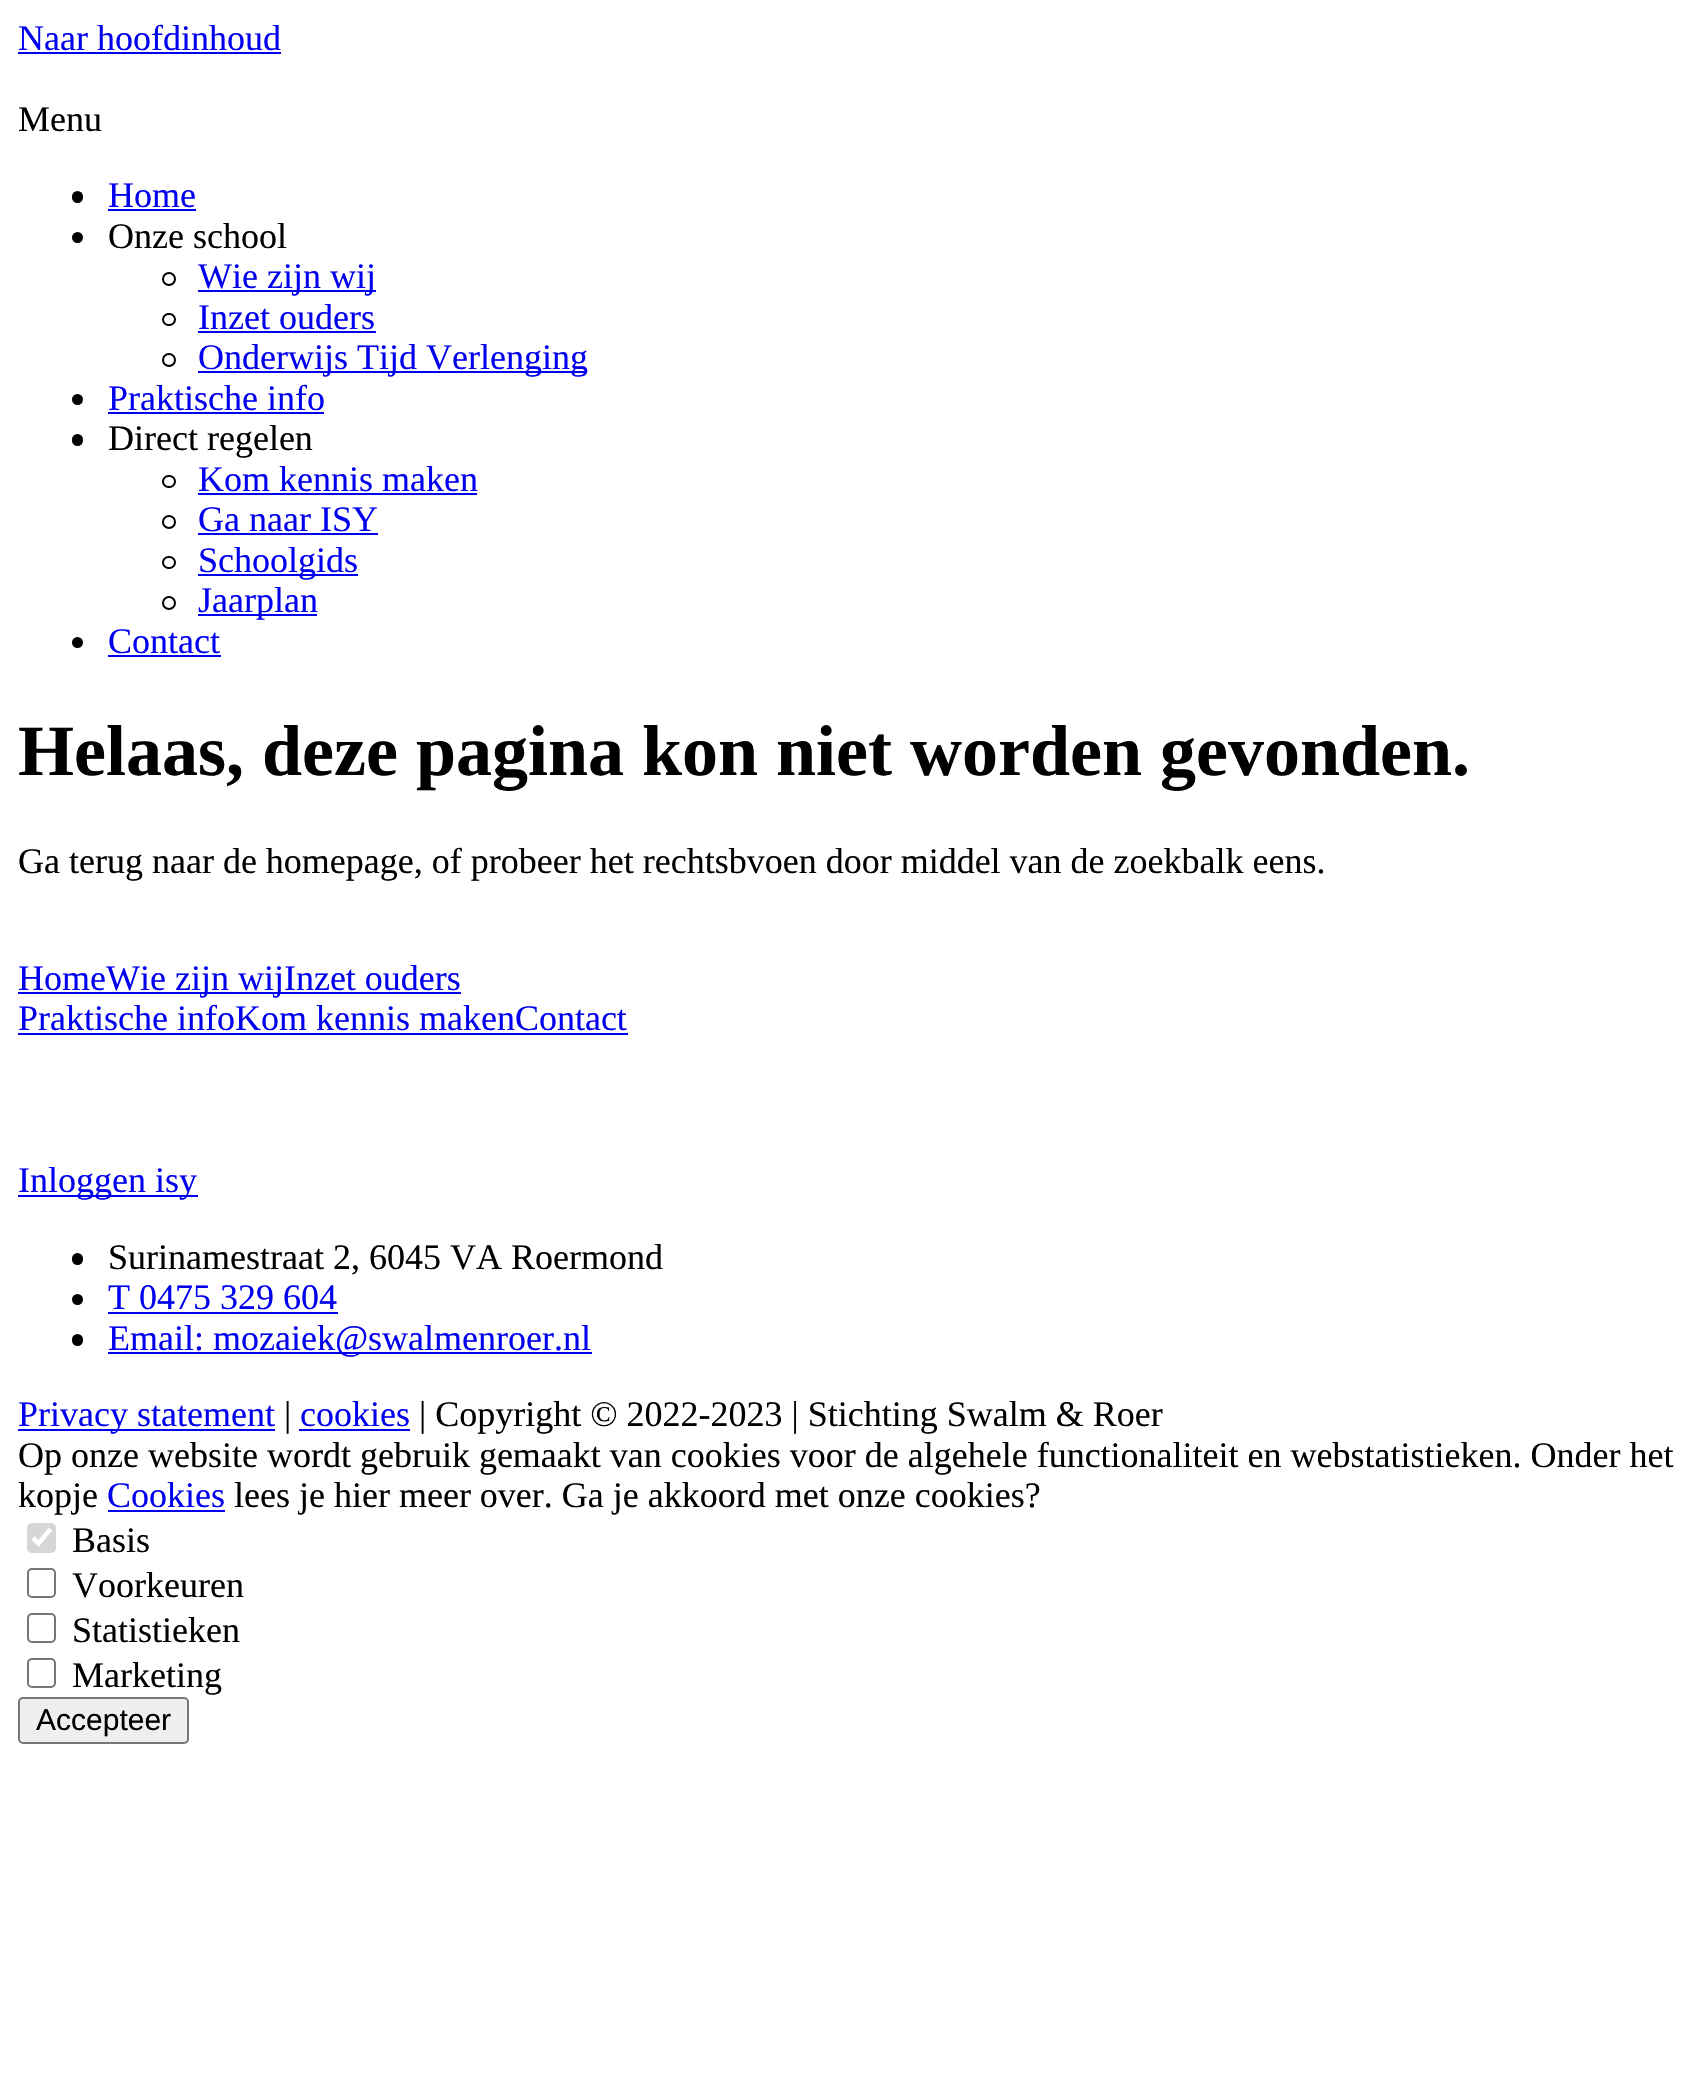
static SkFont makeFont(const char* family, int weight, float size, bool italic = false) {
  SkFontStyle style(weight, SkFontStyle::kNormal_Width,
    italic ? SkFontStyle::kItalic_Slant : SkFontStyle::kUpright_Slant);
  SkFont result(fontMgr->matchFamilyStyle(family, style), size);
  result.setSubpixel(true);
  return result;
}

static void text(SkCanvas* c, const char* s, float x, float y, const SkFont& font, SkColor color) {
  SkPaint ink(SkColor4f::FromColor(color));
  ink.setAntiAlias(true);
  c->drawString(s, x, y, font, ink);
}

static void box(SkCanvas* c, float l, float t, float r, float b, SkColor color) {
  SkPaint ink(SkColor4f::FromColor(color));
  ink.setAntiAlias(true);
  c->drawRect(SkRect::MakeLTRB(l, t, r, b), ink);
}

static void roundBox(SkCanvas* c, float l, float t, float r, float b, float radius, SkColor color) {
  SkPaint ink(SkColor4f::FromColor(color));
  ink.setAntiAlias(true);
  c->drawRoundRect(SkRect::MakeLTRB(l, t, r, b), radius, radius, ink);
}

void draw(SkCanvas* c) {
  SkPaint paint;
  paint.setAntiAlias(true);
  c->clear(0xffffffff);
  SkFont face1 = makeFont("Liberation Serif", 400, 36);
  text(c, "Naar hoofdinhoud", 18, 50, face1, 0xff0000ee);
  box(c, 18, 52, 281, 54, 0xff0000ee);
  text(c, "Menu", 18, 131, face1, 0xff000000);
  roundBox(c, 72, 191, 83, 203, 5.5f, 0xff000000);
  text(c, "Home", 108, 207, face1, 0xff0000ee);
  box(c, 108, 209, 196, 211, 0xff0000ee);
  paint.setColor(0xff000000);
  c->drawCircle(77.5f, 237.5f, 5.5f, paint);
  text(c, "Onze school", 108, 248, face1, 0xff000000);
  paint.setStyle(SkPaint::kStroke_Style);
  paint.setStrokeWidth(2);
  c->drawCircle(169, 279, 6, paint);
  box(c, 198, 290, 376, 292, 0xff0000ee);
  text(c, "Wie zijn wij", 198, 288, face1, 0xff0000ee);
  c->drawRoundRect(SkRect::MakeLTRB(163, 314, 175, 325), 5.5f, 5.5f, paint);
  text(c, "Inzet ouders", 198, 329, face1, 0xff0000ee);
  box(c, 198, 331, 376, 333, 0xff0000ee);
  c->drawCircle(169, 360, 6, paint);
  box(c, 198, 371, 587, 373, 0xff0000ee);
  text(c, "Onderwijs Tijd Verlenging", 198, 369, face1, 0xff0000ee);
  paint.setStyle(SkPaint::kFill_Style);
  c->drawCircle(77.5f, 399.5f, 5.5f, paint);
  text(c, "Praktische info", 108, 410, face1, 0xff0000ee);
  box(c, 108, 412, 324, 414, 0xff0000ee);
  roundBox(c, 72, 434, 83, 446, 5.5f, 0xff000000);
  text(c, "Direct regelen", 108, 450, face1, 0xff000000);
  paint.setStyle(SkPaint::kStroke_Style);
  c->drawRoundRect(SkRect::MakeLTRB(163, 476, 175, 487), 5.5f, 5.5f, paint);
  text(c, "Kom kennis maken", 198, 491, face1, 0xff0000ee);
  box(c, 198, 493, 477, 495, 0xff0000ee);
  c->drawCircle(169, 522, 6, paint);
  text(c, "Ga naar ISY", 198, 531, face1, 0xff0000ee);
  box(c, 198, 533, 378, 535, 0xff0000ee);
  c->drawRoundRect(SkRect::MakeLTRB(163, 557, 175, 568), 5.5f, 5.5f, paint);
  box(c, 198, 574, 358, 576, 0xff0000ee);
  text(c, "Schoolgids", 198, 572, face1, 0xff0000ee);
  c->drawCircle(169, 603, 6, paint);
  box(c, 198, 614, 317, 616, 0xff0000ee);
  text(c, "Jaarplan", 198, 612, face1, 0xff0000ee);
  paint.setStyle(SkPaint::kFill_Style);
  c->drawCircle(77.5f, 642.5f, 5.5f, paint);
  text(c, "Contact", 108, 653, face1, 0xff0000ee);
  box(c, 108, 655, 221, 657, 0xff0000ee);
  SkFont face2 = makeFont("Liberation Serif", 700, 72);
  text(c, "Helaas, deze pagina kon niet worden gevonden.", 18, 775, face2, 0xff000000);
  text(c, "Ga terug naar de homepage, of probeer het rechtsbvoen door middel van de zoekbalk eens.", 18, 873, face1, 0xff000000);
  box(c, 18, 992, 461, 994, 0xff0000ee);
  text(c, "HomeWie zijn wijInzet ouders", 18, 990, face1, 0xff0000ee);
  text(c, "Praktische infoKom kennis makenContact", 18, 1030, face1, 0xff0000ee);
  box(c, 18, 1033, 628, 1035, 0xff0000ee);
  box(c, 18, 1195, 198, 1197, 0xff0000ee);
  text(c, "Inloggen isy", 18, 1192, face1, 0xff0000ee);
  roundBox(c, 72, 1253, 83, 1265, 5.5f, 0xff000000);
  text(c, "Surinamestraat 2, 6045 VA Roermond", 108, 1269, face1, 0xff000000);
  c->drawCircle(77.5f, 1299.5f, 5.5f, paint);
  text(c, "T 0475 329 604", 108, 1309, face1, 0xff0000ee);
  box(c, 108, 1312, 338, 1314, 0xff0000ee);
  roundBox(c, 72, 1334, 83, 1346, 5.5f, 0xff000000);
  box(c, 108, 1352, 592, 1354, 0xff0000ee);
  text(c, "Email: mozaiek@swalmenroer.nl", 108, 1350, face1, 0xff0000ee);
  box(c, 18, 1429, 275, 1431, 0xff0000ee);
  text(c, "Privacy statement", 18, 1426, face1, 0xff0000ee);
  text(c, "|", 284, 1426, face1, 0xff000000);
  text(c, "cookies", 300, 1426, face1, 0xff0000ee);
  box(c, 299, 1429, 410, 1431, 0xff0000ee);
  text(c, "| Copyright © 2022-2023 | Stichting Swalm & Roer", 419, 1426, face1, 0xff000000);
  text(c, "Op onze website wordt gebruik gemaakt van cookies voor de algehele functionaliteit en webstatistieken. Onder het", 18, 1467, face1, 0xff000000);
  text(c, "kopje", 18, 1507, face1, 0xff000000);
  text(c, "Cookies", 107, 1507, face1, 0xff0000ee);
  box(c, 108, 1510, 225, 1512, 0xff0000ee);
  text(c, "lees je hier meer over. Ga je akkoord met onze cookies?", 234, 1507, face1, 0xff000000);
  roundBox(c, 27, 1523, 56, 1553, 5, 0xffd6d6d6);
  paint.setStyle(SkPaint::kStroke_Style);
  paint.setStrokeWidth(4.7f);
  paint.setColor(0xffffffff);
  c->drawPath(SkPathBuilder().moveTo(33, 1538).lineTo(38.5f, 1543.5f).lineTo(50.5f, 1529).detach(), paint);
  text(c, "Basis", 72, 1552, face1, 0xff000000);
  paint.setStrokeWidth(2);
  paint.setColor(0xff767676);
  c->drawRoundRect(SkRect::MakeLTRB(28, 1569, 55, 1597), 4, 4, paint);
  text(c, "Voorkeuren", 72, 1597, face1, 0xff000000);
  c->drawRoundRect(SkRect::MakeLTRB(28, 1614, 55, 1642), 4, 4, paint);
  text(c, "Statistieken", 72, 1642, face1, 0xff000000);
  c->drawRoundRect(SkRect::MakeLTRB(28, 1659, 55, 1687), 4, 4, paint);
  text(c, "Marketing", 72, 1687, face1, 0xff000000);
  paint.setStyle(SkPaint::kFill_Style);
  paint.setColor(0xffefefef);
  c->drawRoundRect(SkRect::MakeLTRB(19, 1698, 188, 1743), 4, 4, paint);
  paint.setStyle(SkPaint::kStroke_Style);
  paint.setColor(0xff767676);
  c->drawRoundRect(SkRect::MakeLTRB(19, 1698, 188, 1743), 4, 4, paint);
  SkFont face3 = makeFont("Liberation Sans", 400, 30);
  text(c, "Accepteer", 36, 1730, face3, 0xff000000);
}
